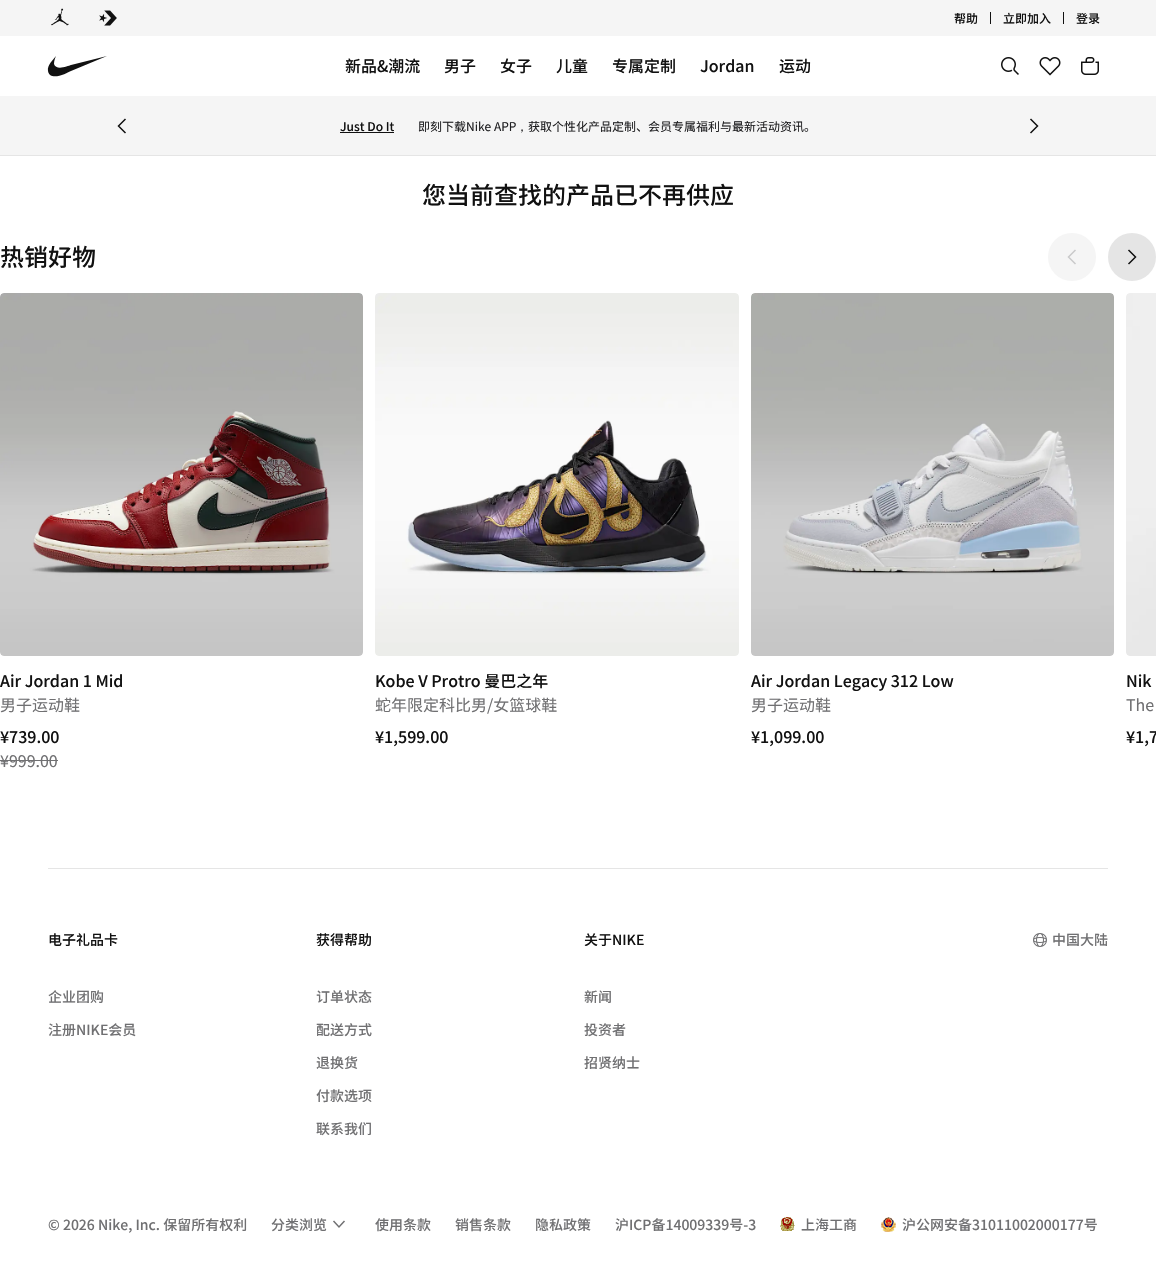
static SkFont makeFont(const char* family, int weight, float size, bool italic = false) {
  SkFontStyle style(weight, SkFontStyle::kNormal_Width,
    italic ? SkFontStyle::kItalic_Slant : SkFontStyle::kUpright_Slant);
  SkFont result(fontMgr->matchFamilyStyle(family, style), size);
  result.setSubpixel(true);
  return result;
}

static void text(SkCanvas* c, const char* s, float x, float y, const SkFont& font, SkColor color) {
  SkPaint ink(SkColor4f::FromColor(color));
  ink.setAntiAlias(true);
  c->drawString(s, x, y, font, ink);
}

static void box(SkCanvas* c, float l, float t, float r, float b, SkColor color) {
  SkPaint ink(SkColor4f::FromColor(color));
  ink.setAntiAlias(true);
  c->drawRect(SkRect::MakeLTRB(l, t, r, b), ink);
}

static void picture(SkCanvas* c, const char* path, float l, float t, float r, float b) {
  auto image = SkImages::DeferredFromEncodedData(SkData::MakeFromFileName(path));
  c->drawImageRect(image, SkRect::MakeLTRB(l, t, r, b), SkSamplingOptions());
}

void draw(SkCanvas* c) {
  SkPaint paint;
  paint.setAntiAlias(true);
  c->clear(0xffffffff);
  box(c, 0, 0, 1156, 36, 0xfff5f5f5);
  picture(c, "img_01.png", 51, 8, 69, 26);
  picture(c, "img_02.png", 99, 10, 117, 26);
  SkFont face1 = makeFont("Noto Sans SC", 500, 12);
  text(c, "帮助", 954, 23, face1, 0xff111111);
  box(c, 990, 12, 991, 24, 0xff111111);
  text(c, "立即加入", 1003, 23, face1, 0xff111111);
  box(c, 1063, 12, 1064, 24, 0xff111111);
  text(c, "登录", 1076, 23, face1, 0xff111111);
  paint.setColor(0xff111111);
  c->drawPath(SkPathBuilder(SkPathFillType::kEvenOdd).moveTo(107, 56).lineTo(71, 71).cubicTo(67, 73, 50, 82, 48, 71).cubicTo(47, 65, 53, 60, 56, 56).cubicTo(55, 58, 54, 61, 54, 64).cubicTo(56, 71, 68, 66, 71, 65).close().detach(), paint);
  SkFont face2 = makeFont("Noto Sans SC", 500, 16);
  text(c, "新品&潮流", 345, 72, face2, 0xff111111);
  text(c, "男子", 444, 72, face2, 0xff111111);
  text(c, "女子", 500, 72, face2, 0xff111111);
  text(c, "儿童", 556, 72, face2, 0xff111111);
  text(c, "专属定制", 612, 72, face2, 0xff111111);
  text(c, "Jordan", 700, 72, face2, 0xff111111);
  text(c, "运动", 779, 72, face2, 0xff111111);
  picture(c, "img_03.png", 1001, 57, 1019, 75);
  picture(c, "img_04.png", 1039, 57, 1061, 76);
  picture(c, "img_05.png", 1081, 57, 1099, 75);
  box(c, 0, 96, 1156, 155, 0xfff5f5f5);
  paint.setStyle(SkPaint::kStroke_Style);
  paint.setStrokeWidth(1.5f);
  c->drawPath(SkPathBuilder().moveTo(125.5f, 133).lineTo(118.5f, 126).lineTo(125.5f, 119).detach(), paint);
  box(c, 0, 155, 1156, 156, 0xffe5e5e5);
  text(c, "Just Do It", 340, 131, face1, 0xff111111);
  box(c, 340, 132, 394, 133, 0xff111111);
  SkFont face3 = makeFont("Noto Sans SC", 400, 12);
  text(c, "即刻下载Nike APP", 418, 131, face3, 0xff1f1f21);
  SkFont face4 = makeFont("WenQuanYi Zen Hei", 500, 12);
  text(c, "，", 516, 131, face4, 0xff1f1f21);
  text(c, "获取个性化产品定制、会员专属福利与最新活动资讯。", 528, 131, face3, 0xff1f1f21);
  c->drawPath(SkPathBuilder().moveTo(1030.5f, 133).lineTo(1037.5f, 126).lineTo(1030.5f, 119).detach(), paint);
  SkFont face5 = makeFont("Noto Sans SC", 500, 24);
  text(c, "您当前查找的产品已不再供应", 422, 204, face5, 0xff111111);
  text(c, "热销好物", 0, 266, face5, 0xff111111);
  paint.setStyle(SkPaint::kFill_Style);
  paint.setColor(0xfff5f5f5);
  c->drawCircle(1072, 257, 24, paint);
  paint.setStyle(SkPaint::kStroke_Style);
  paint.setColor(0xffcacacb);
  c->drawPath(SkPathBuilder().moveTo(1075.5f, 264).lineTo(1068.5f, 257).lineTo(1075.5f, 250).detach(), paint);
  paint.setStyle(SkPaint::kFill_Style);
  paint.setColor(0xffe5e5e5);
  c->drawCircle(1132, 257, 24, paint);
  paint.setStyle(SkPaint::kStroke_Style);
  paint.setColor(0xff111111);
  c->drawPath(SkPathBuilder().moveTo(1128.5f, 264).lineTo(1135.5f, 257).lineTo(1128.5f, 250).detach(), paint);
  picture(c, "img_06.png", 0, 293, 363, 656);
  text(c, "Air Jordan 1 Mid", 0, 687, face2, 0xff111111);
  SkFont face6 = makeFont("Noto Sans SC", 400, 16);
  text(c, "男子运动鞋", 0, 711, face6, 0xff707072);
  text(c, "¥739.00", 0, 743, face2, 0xff111111);
  text(c, "¥999.00", 0, 767, face6, 0xff707072);
  box(c, 0, 760, 58, 761, 0xff707072);
  picture(c, "img_07.png", 375, 293, 739, 656);
  text(c, "Kobe V Protro 曼巴之年", 375, 687, face2, 0xff111111);
  text(c, "蛇年限定科比男/女篮球鞋", 375, 711, face6, 0xff707072);
  text(c, "¥1,599.00", 375, 743, face2, 0xff111111);
  picture(c, "img_08.png", 751, 293, 1114, 656);
  text(c, "Air Jordan Legacy 312 Low", 751, 687, face2, 0xff111111);
  text(c, "男子运动鞋", 751, 711, face6, 0xff707072);
  text(c, "¥1,099.00", 751, 743, face2, 0xff111111);
  picture(c, "img_09.png", 1126, 293, 1156, 656);
  text(c, "Nik", 1126, 687, face2, 0xff111111);
  text(c, "The", 1126, 711, face6, 0xff707072);
  text(c, "¥1,7", 1126, 743, face2, 0xff111111);
  box(c, 48, 868, 1108, 869, 0xffe5e5e5);
  SkFont face7 = makeFont("Noto Sans SC", 500, 14);
  text(c, "电子礼品卡", 48, 945, face7, 0xff111111);
  text(c, "企业团购", 48, 1002, face7, 0xff707072);
  text(c, "注册NIKE会员", 48, 1035, face7, 0xff707072);
  text(c, "获得帮助", 316, 945, face7, 0xff111111);
  text(c, "订单状态", 316, 1002, face7, 0xff707072);
  text(c, "配送方式", 316, 1035, face7, 0xff707072);
  text(c, "退换货", 316, 1068, face7, 0xff707072);
  text(c, "付款选项", 316, 1101, face7, 0xff707072);
  text(c, "联系我们", 316, 1134, face7, 0xff707072);
  text(c, "关于NIKE", 584, 945, face7, 0xff111111);
  text(c, "新闻", 584, 1002, face7, 0xff707072);
  text(c, "投资者", 584, 1035, face7, 0xff707072);
  text(c, "招贤纳士", 584, 1068, face7, 0xff707072);
  picture(c, "img_10.png", 1033, 933, 1047, 947);
  text(c, "中国大陆", 1052, 945, face7, 0xff707072);
  text(c, "© 2026 Nike, Inc. 保留所有权利", 48, 1230, face7, 0xff707072);
  text(c, "分类浏览", 271, 1230, face7, 0xff707072);
  paint.setColor(0xff707072);
  c->drawPath(SkPathBuilder().moveTo(344.5f, 1221).lineTo(339, 1227).lineTo(333.5f, 1221).detach(), paint);
  text(c, "使用条款", 375, 1230, face7, 0xff707072);
  text(c, "销售条款", 455, 1230, face7, 0xff707072);
  text(c, "隐私政策", 535, 1230, face7, 0xff707072);
  text(c, "沪ICP备14009339号-3", 615, 1230, face7, 0xff707072);
  picture(c, "img_11.png", 780, 1217, 795, 1231);
  text(c, "上海工商", 801, 1230, face7, 0xff707072);
  picture(c, "img_12.png", 881, 1217, 896, 1232);
  text(c, "沪公网安备31011002000177号", 902, 1230, face7, 0xff707072);
}
